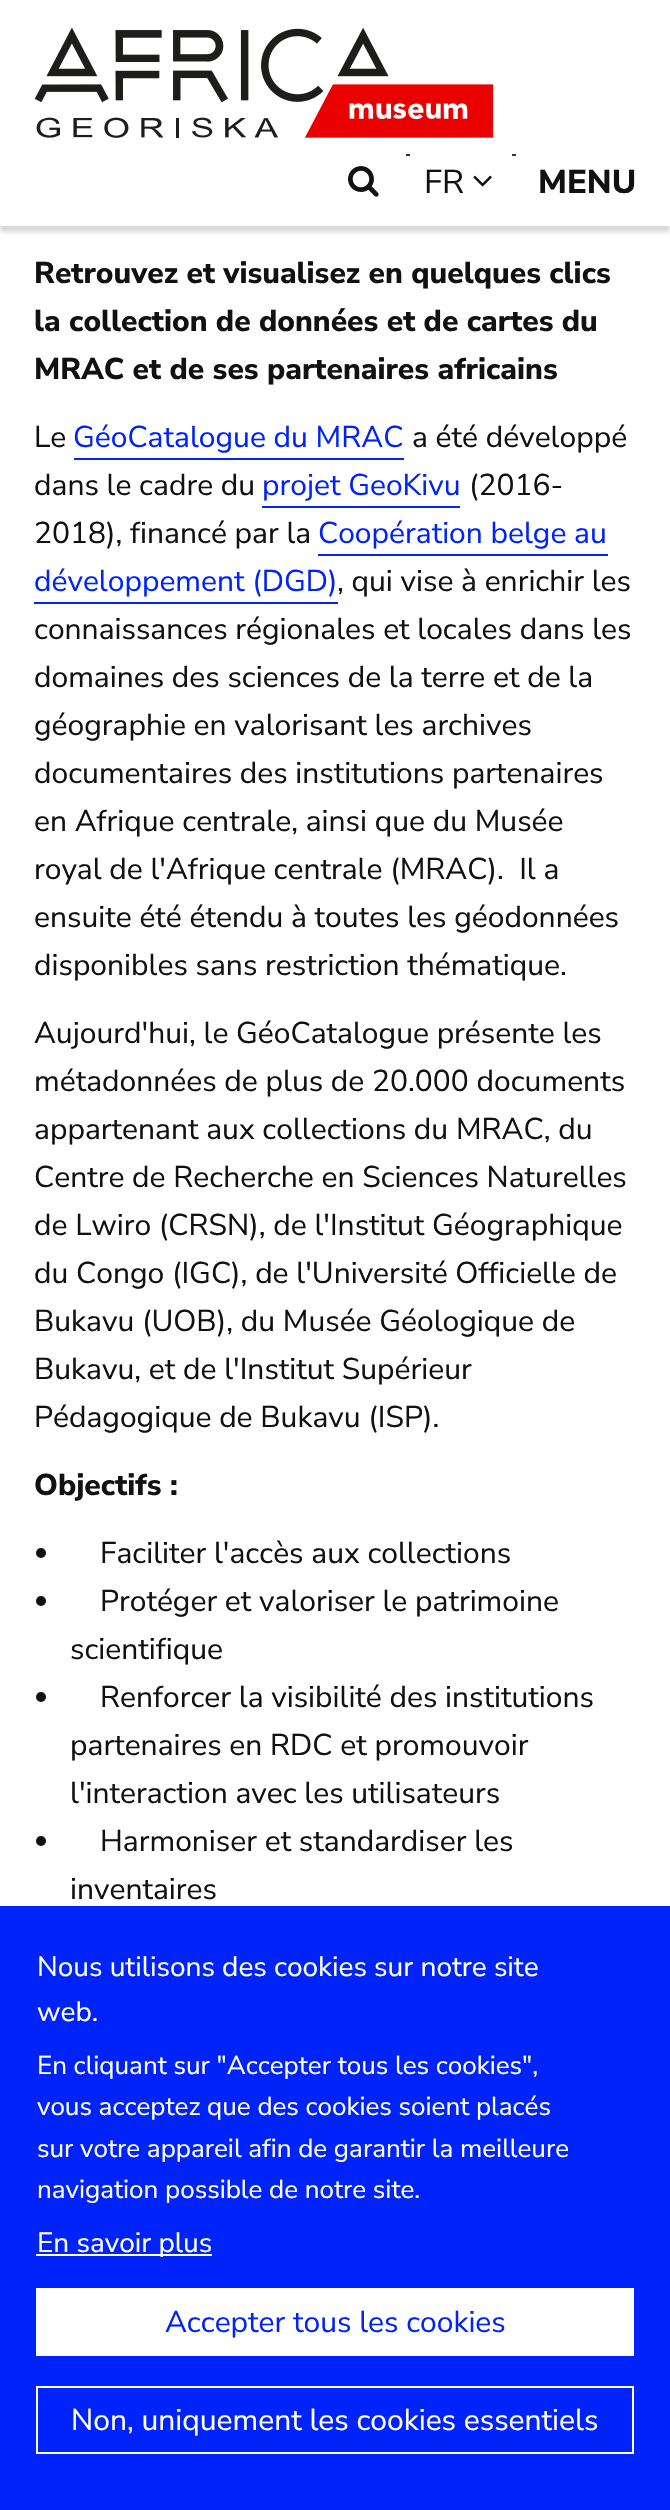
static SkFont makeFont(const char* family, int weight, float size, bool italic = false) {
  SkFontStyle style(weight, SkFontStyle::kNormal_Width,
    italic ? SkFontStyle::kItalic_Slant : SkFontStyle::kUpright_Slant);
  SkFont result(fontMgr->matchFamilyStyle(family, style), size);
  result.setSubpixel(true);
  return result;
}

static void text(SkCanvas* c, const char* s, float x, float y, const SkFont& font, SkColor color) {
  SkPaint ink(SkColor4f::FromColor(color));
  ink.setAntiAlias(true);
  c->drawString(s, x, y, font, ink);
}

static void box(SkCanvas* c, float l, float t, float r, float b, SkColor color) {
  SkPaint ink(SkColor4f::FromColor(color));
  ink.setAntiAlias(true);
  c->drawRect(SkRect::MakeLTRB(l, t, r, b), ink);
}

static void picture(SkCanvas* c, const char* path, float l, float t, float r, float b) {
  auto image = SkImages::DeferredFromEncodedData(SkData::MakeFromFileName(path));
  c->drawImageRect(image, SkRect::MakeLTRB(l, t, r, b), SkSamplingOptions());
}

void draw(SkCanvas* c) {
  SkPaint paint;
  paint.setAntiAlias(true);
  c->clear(0xffffffff);
  paint.setColor(0x26000000);
  paint.setMaskFilter(SkMaskFilter::MakeBlur(kNormal_SkBlurStyle, 2));
  c->drawRect(SkRect::MakeLTRB(0, 6, 670, 232), paint);
  paint.setMaskFilter(nullptr);
  box(c, 0, 3, 670, 226, 0xffffffff);
  picture(c, "img_01.png", 34, 27, 494, 138);
  box(c, 406, 154, 410, 156, 0xff333333);
  picture(c, "img_02.png", 348, 166, 379, 197);
  box(c, 512, 154, 516, 156, 0xff333333);
  SkFont face1 = makeFont("Nunito Sans", 400, 33);
  text(c, "FR", 424, 193, face1, 0xff111111);
  picture(c, "img_03.png", 473, 175, 492, 187);
  SkFont face2 = makeFont("Nunito Sans", 800, 33);
  text(c, "MENU", 538, 193, face2, 0xff111111);
  SkFont face3 = makeFont("Nunito Sans", 800, 30);
  text(c, "Retrouvez et visualisez en quelques clics", 34, 283, face3, 0xff111111);
  text(c, "la collection de données et de cartes du", 34, 331, face3, 0xff111111);
  text(c, "MRAC et de ses partenaires africains", 34, 379, face3, 0xff111111);
  SkFont face4 = makeFont("Nunito Sans", 400, 30);
  text(c, "Le", 34, 447, face4, 0xff111111);
  text(c, "GéoCatalogue du MRAC", 73, 447, face4, 0xff0023f9);
  box(c, 74, 458, 404, 460, 0xff0023f9);
  text(c, "a été développé", 412, 447, face4, 0xff111111);
  text(c, "dans le cadre du", 34, 495, face4, 0xff111111);
  text(c, "projet GeoKivu", 262, 495, face4, 0xff0023f9);
  box(c, 262, 506, 460, 508, 0xff0023f9);
  text(c, "(2016-", 469, 495, face4, 0xff111111);
  text(c, "2018), financé par la", 34, 543, face4, 0xff111111);
  text(c, "Coopération belge au", 318, 543, face4, 0xff0023f9);
  box(c, 318, 554, 608, 556, 0xff0023f9);
  text(c, "développement (DGD)", 34, 591, face4, 0xff0023f9);
  box(c, 34, 602, 338, 604, 0xff0023f9);
  text(c, ", qui vise à enrichir les", 337, 591, face4, 0xff111111);
  text(c, "connaissances régionales et locales dans les", 34, 639, face4, 0xff111111);
  text(c, "domaines des sciences de la terre et de la", 34, 687, face4, 0xff111111);
  text(c, "géographie en valorisant les archives", 34, 735, face4, 0xff111111);
  text(c, "documentaires des institutions partenaires", 34, 783, face4, 0xff111111);
  text(c, "en Afrique centrale, ainsi que du Musée", 34, 831, face4, 0xff111111);
  text(c, "royal de l'Afrique centrale (MRAC).  Il a", 34, 879, face4, 0xff111111);
  text(c, "ensuite été étendu à toutes les géodonnées", 34, 927, face4, 0xff111111);
  text(c, "disponibles sans restriction thématique.", 34, 975, face4, 0xff111111);
  text(c, "Aujourd'hui, le GéoCatalogue présente les", 34, 1043, face4, 0xff111111);
  text(c, "métadonnées de plus de 20.000 documents", 34, 1091, face4, 0xff111111);
  text(c, "appartenant aux collections du MRAC, du", 34, 1139, face4, 0xff111111);
  text(c, "Centre de Recherche en Sciences Naturelles", 34, 1187, face4, 0xff111111);
  text(c, "de Lwiro (CRSN), de l'Institut Géographique", 34, 1235, face4, 0xff111111);
  text(c, "du Congo (IGC), de l'Université Officielle de", 34, 1283, face4, 0xff111111);
  text(c, "Bukavu (UOB), du Musée Géologique de", 34, 1331, face4, 0xff111111);
  text(c, "Bukavu, et de l'Institut Supérieur", 34, 1379, face4, 0xff111111);
  text(c, "Pédagogique de Bukavu (ISP).", 34, 1427, face4, 0xff111111);
  text(c, "Objectifs :", 34, 1495, face3, 0xff111111);
  paint.setColor(0xff111111);
  c->drawCircle(41, 1553, 5, paint);
  text(c, "Faciliter l'accès aux collections", 100, 1563, face4, 0xff111111);
  c->drawCircle(41, 1601, 5, paint);
  text(c, "Protéger et valoriser le patrimoine", 100, 1611, face4, 0xff111111);
  text(c, "scientifique", 70, 1659, face4, 0xff111111);
  c->drawCircle(41, 1697, 5, paint);
  text(c, "Renforcer la visibilité des institutions", 100, 1707, face4, 0xff111111);
  text(c, "partenaires en RDC et promouvoir", 70, 1755, face4, 0xff111111);
  text(c, "l'interaction avec les utilisateurs", 70, 1803, face4, 0xff111111);
  c->drawCircle(41, 1841, 5, paint);
  text(c, "Harmoniser et standardiser les", 100, 1851, face4, 0xff111111);
  text(c, "inventaires", 70, 1899, face4, 0xff111111);
  box(c, 0, 1906, 670, 2510, 0xff0023f9);
  SkFont face5 = makeFont("Nunito Sans", 400, 28);
  text(c, "Nous utilisons des cookies sur notre site", 37, 1976, face5, 0xffffffff);
  text(c, "web.", 37, 2021, face5, 0xffffffff);
  SkFont face6 = makeFont("Nunito Sans", 400, 26);
  text(c, "En cliquant sur \"Accepter tous les cookies\",", 37, 2074, face6, 0xffffffff);
  text(c, "vous acceptez que des cookies soient placés", 37, 2115, face6, 0xffffffff);
  text(c, "sur votre appareil afin de garantir la meilleure", 37, 2157, face6, 0xffffffff);
  text(c, "navigation possible de notre site.", 37, 2198, face6, 0xffffffff);
  box(c, 36, 2254, 212, 2256, 0xffffffff);
  text(c, "En savoir plus", 37, 2252, face5, 0xffffffff);
  box(c, 36, 2288, 634, 2356, 0xffffffff);
  text(c, "Accepter tous les cookies", 165, 2332, face4, 0xff0023f9);
  paint.setStyle(SkPaint::kStroke_Style);
  paint.setStrokeWidth(2);
  paint.setColor(0xffffffff);
  c->drawRect(SkRect::MakeLTRB(37, 2387, 633, 2453), paint);
  text(c, "Non, uniquement les cookies essentiels", 71, 2430, face4, 0xffffffff);
}
